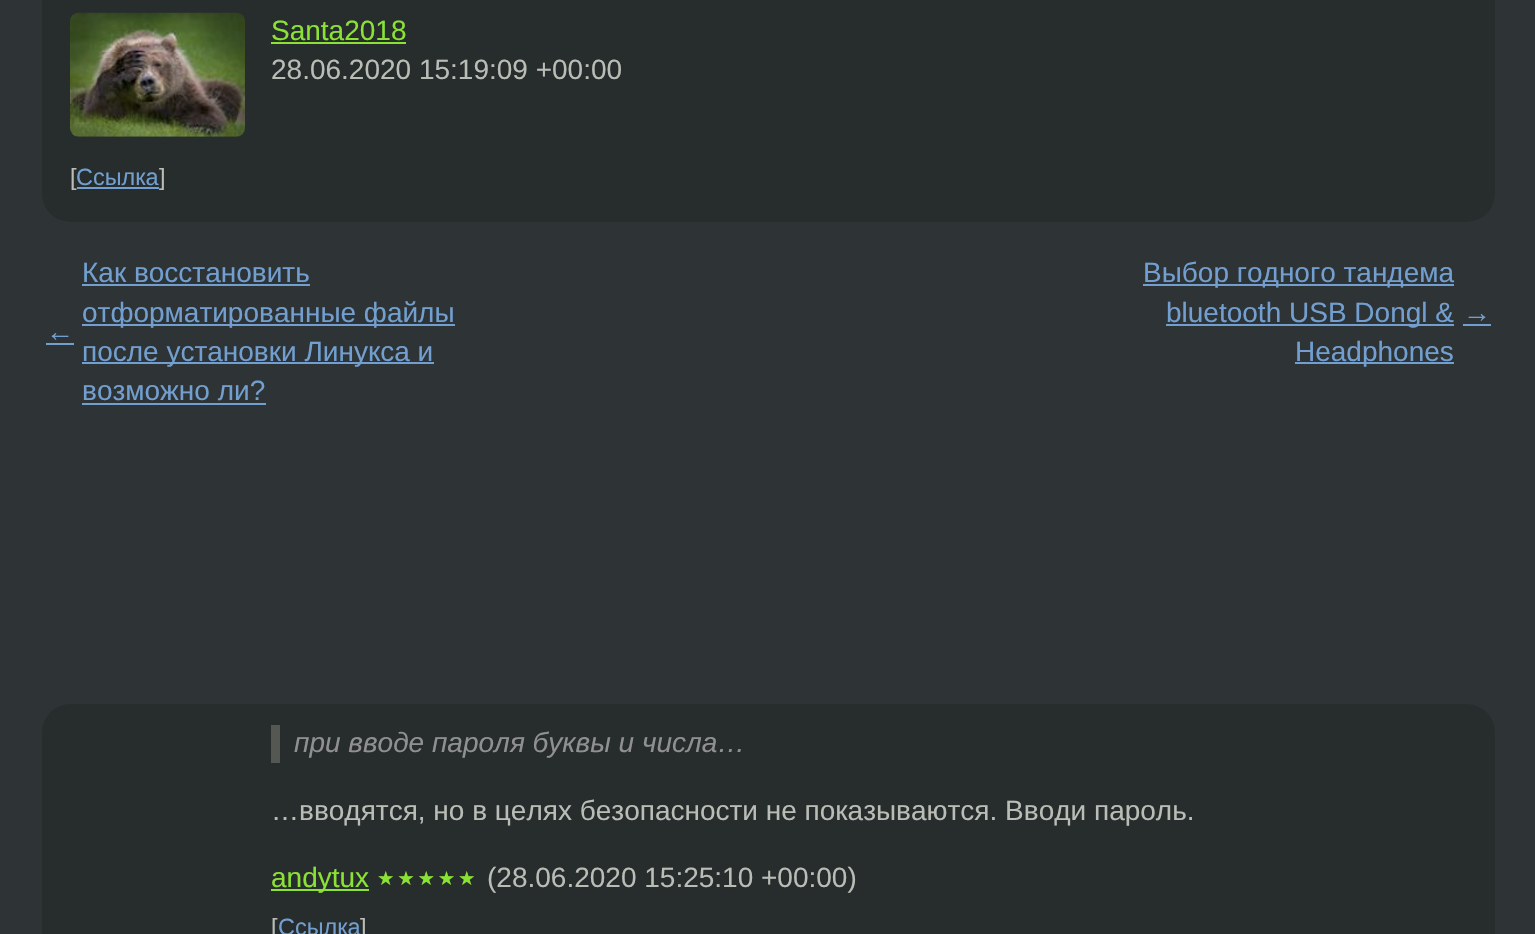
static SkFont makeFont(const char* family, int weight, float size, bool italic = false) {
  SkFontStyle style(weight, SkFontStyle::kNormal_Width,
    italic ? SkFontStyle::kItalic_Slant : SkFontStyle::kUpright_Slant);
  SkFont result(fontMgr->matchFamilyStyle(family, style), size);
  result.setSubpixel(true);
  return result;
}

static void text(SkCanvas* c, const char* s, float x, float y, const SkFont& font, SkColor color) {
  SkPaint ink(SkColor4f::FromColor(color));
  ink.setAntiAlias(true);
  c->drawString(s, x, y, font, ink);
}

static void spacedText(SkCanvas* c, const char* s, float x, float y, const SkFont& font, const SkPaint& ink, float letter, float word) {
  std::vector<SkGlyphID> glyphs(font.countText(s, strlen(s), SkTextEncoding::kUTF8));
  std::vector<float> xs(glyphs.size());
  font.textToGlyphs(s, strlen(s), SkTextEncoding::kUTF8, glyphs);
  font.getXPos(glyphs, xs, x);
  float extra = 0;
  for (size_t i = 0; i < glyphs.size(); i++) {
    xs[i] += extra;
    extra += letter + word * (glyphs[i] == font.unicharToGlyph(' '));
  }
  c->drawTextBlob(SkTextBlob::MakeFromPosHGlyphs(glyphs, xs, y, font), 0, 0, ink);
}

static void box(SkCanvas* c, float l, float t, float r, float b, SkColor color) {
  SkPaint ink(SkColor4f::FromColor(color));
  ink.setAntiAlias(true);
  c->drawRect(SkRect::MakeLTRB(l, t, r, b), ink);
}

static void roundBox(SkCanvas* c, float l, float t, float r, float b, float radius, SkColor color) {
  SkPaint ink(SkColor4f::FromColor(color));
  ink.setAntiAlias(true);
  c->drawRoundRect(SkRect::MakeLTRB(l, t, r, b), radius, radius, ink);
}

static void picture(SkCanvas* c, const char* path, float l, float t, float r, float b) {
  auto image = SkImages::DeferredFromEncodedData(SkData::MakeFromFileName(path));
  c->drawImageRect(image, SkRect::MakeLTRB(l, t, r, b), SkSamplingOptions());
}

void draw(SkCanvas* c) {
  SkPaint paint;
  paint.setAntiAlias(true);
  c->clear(0xff2e3436);
  roundBox(c, 42, -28, 1495, 222, 28, 0xff272c2d);
  picture(c, "img_01.png", 70, 12, 245, 137);
  SkFont face1 = makeFont("Liberation Sans", 400, 28);
  text(c, "Santa2018", 271, 40, face1, 0xff8ae234);
  box(c, 271, 42, 406, 44, 0xff8ae234);
  text(c, "28.06.2020 15:19:09 +00:00", 271, 79, face1, 0xffbabdb6);
  SkFont face2 = makeFont("Liberation Sans", 400, 23.5f);
  text(c, "[", 70, 185, face2, 0xffbabdb6);
  box(c, 77, 187, 159, 189, 0xff729fcf);
  text(c, "Ссылка", 76, 185, face2, 0xff729fcf);
  text(c, "]", 159, 185, face2, 0xffbabdb6);
  text(c, "←", 46, 341, face1, 0xff729fcf);
  box(c, 46, 343, 74, 345, 0xff729fcf);
  text(c, "Как восстановить", 82, 282, face1, 0xff729fcf);
  box(c, 82, 284, 310, 286, 0xff729fcf);
  box(c, 82, 324, 455, 326, 0xff729fcf);
  text(c, "отформатированные файлы", 82, 322, face1, 0xff729fcf);
  box(c, 82, 362, 434, 364, 0xff729fcf);
  text(c, "после установки Линукса и", 82, 361, face1, 0xff729fcf);
  text(c, "возможно ли?", 82, 400, face1, 0xff729fcf);
  box(c, 82, 403, 266, 405, 0xff729fcf);
  box(c, 1143, 284, 1454, 286, 0xff729fcf);
  text(c, "Выбор годного тандема", 1143, 282, face1, 0xff729fcf);
  box(c, 1166, 324, 1454, 326, 0xff729fcf);
  text(c, "bluetooth USB Dongl &", 1166, 322, face1, 0xff729fcf);
  box(c, 1295, 362, 1454, 364, 0xff729fcf);
  text(c, "Headphones", 1295, 361, face1, 0xff729fcf);
  text(c, "→", 1463, 322, face1, 0xff729fcf);
  box(c, 1463, 324, 1491, 326, 0xff729fcf);
  roundBox(c, 42, 704, 1495, 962, 28, 0xff272c2d);
  box(c, 271, 725, 280, 763, 0xff555753);
  SkFont face3 = makeFont("Liberation Sans", 400, 28, true);
  text(c, "при вводе пароля буквы и числа…", 294, 752, face3, 0xff909090);
  text(c, "…вводятся, но в целях безопасности не показываются. Вводи пароль.", 271, 820, face1, 0xffbabdb6);
  box(c, 271, 889, 369, 891, 0xff8ae234);
  text(c, "andytux", 271, 887, face1, 0xff8ae234);
  SkFont face4 = makeFont("DejaVu Sans", 400, 19.5f);
  paint.setColor(0xff8ae234);
  spacedText(c, "★★★★★", 377, 885, face4, paint, 2.75f, 0);
  text(c, "(28.06.2020 15:25:10 +00:00)", 487, 887, face1, 0xffbabdb6);
  text(c, "[", 271, 935, face2, 0xffbabdb6);
  text(c, "Ссылка", 278, 935, face2, 0xff729fcf);
  text(c, "]", 360, 935, face2, 0xffbabdb6);
}
